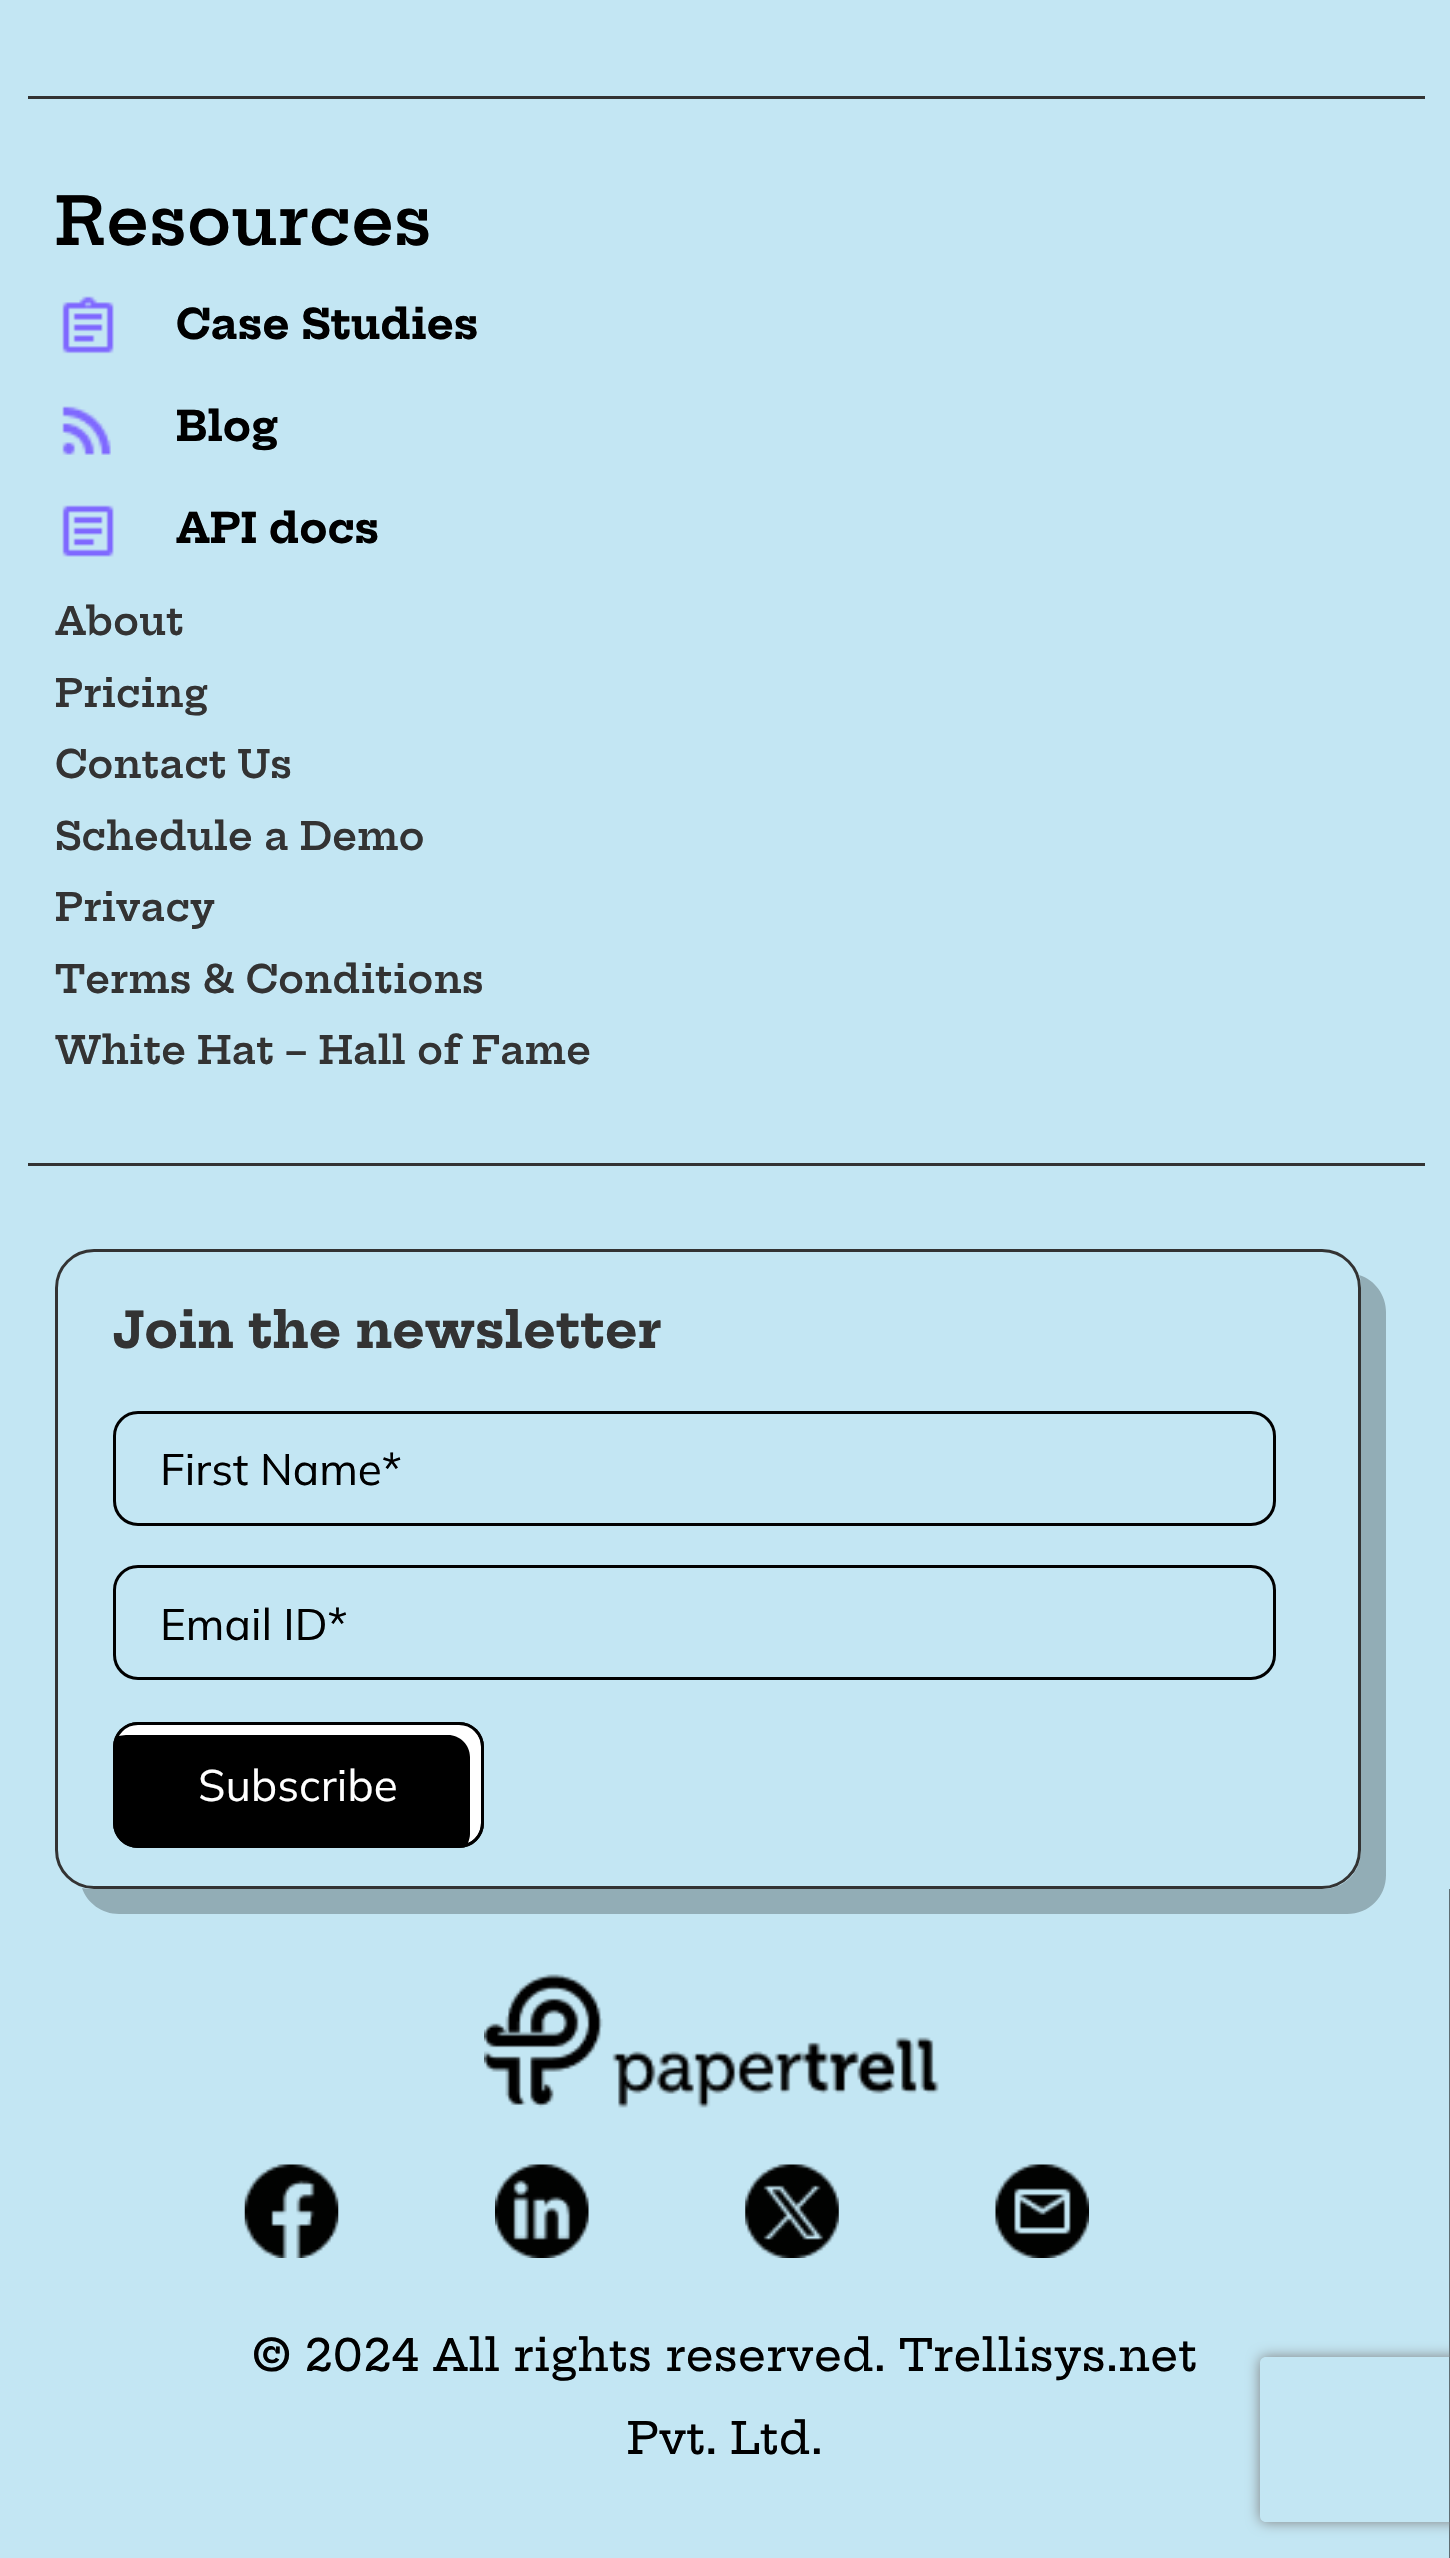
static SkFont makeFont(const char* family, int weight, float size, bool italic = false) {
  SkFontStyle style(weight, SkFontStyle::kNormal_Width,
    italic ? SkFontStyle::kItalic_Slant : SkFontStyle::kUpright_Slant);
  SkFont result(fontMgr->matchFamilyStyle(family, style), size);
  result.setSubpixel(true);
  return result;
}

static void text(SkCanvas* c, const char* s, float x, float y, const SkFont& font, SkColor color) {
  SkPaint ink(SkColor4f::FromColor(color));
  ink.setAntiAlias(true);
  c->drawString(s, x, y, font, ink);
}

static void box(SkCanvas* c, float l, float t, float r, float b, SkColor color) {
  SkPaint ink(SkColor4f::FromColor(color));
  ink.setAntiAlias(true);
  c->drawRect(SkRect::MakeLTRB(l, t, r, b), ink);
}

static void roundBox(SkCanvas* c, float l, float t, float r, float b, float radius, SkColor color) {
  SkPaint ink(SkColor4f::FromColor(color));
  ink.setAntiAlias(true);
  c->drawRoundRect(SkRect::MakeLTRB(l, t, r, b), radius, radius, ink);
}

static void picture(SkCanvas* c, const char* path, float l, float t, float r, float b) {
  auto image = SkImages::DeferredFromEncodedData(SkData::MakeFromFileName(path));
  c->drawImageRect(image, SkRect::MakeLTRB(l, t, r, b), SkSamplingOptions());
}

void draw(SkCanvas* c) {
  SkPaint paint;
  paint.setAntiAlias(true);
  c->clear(0xffc3e6f3);
  box(c, 28, 96, 1425, 99, 0xff333333);
  box(c, 28, 1163, 1425, 1166, 0xff333333);
  SkFont face1 = makeFont("Hepta Slab", 600, 66);
  text(c, "Resources", 55, 245, face1, 0xff000000);
  picture(c, "img_01.png", 62, 296, 114, 354);
  SkFont face2 = makeFont("Hepta Slab", 700, 41.25f);
  text(c, "Case Studies", 176, 339, face2, 0xff000000);
  picture(c, "img_02.png", 62, 406, 111, 455);
  text(c, "Blog", 176, 441, face2, 0xff000000);
  picture(c, "img_03.png", 62, 505, 114, 557);
  text(c, "API docs", 176, 543, face2, 0xff000000);
  SkFont face3 = makeFont("Hepta Slab", 600, 38.5f);
  text(c, "About", 55, 635, face3, 0xff333333);
  text(c, "Pricing", 55, 707, face3, 0xff333333);
  text(c, "Contact Us", 55, 778, face3, 0xff333333);
  text(c, "Schedule a Demo", 55, 850, face3, 0xff333333);
  text(c, "Privacy", 55, 921, face3, 0xff333333);
  text(c, "Terms & Conditions", 55, 993, face3, 0xff333333);
  text(c, "White Hat – Hall of Fame", 55, 1064, face3, 0xff333333);
  paint.setColor(0xff92adb6);
  c->drawPath(SkPathBuilder().moveTo(82, 1888).cubicTo(87, 1903, 102, 1914, 119, 1914).lineTo(1347, 1914).cubicTo(1369, 1914, 1386, 1897, 1386, 1875).lineTo(1386, 1312).cubicTo(1386, 1295, 1375, 1280, 1359, 1275).cubicTo(1361, 1279, 1361, 1283, 1361, 1287).lineTo(1361, 1851).cubicTo(1361, 1872, 1344, 1889, 1323, 1889).lineTo(94, 1889).cubicTo(90, 1889, 86, 1889, 82, 1888).close().detach(), paint);
  paint.setStyle(SkPaint::kStroke_Style);
  paint.setStrokeWidth(3);
  paint.setColor(0xff333333);
  c->drawRoundRect(SkRect::MakeLTRB(56.5f, 1250.5f, 1359.5f, 1887.5f), 37.5f, 37.5f, paint);
  SkFont face4 = makeFont("Hepta Slab", 700, 49.5f);
  text(c, "Join the newsletter", 113, 1348, face4, 0xff333333);
  paint.setColor(0xff000000);
  c->drawRoundRect(SkRect::MakeLTRB(114.5f, 1412.5f, 1274.5f, 1524.5f), 23.5f, 23.5f, paint);
  SkFont face5 = makeFont("Mulish", 400, 44);
  text(c, "First Name*", 160, 1485, face5, 0xff000000);
  c->drawRoundRect(SkRect::MakeLTRB(114.5f, 1566.5f, 1274.5f, 1678.5f), 23.5f, 23.5f, paint);
  text(c, "Email ID*", 160, 1640, face5, 0xff000000);
  roundBox(c, 113, 1722, 484, 1848, 25, 0xff000000);
  paint.setStyle(SkPaint::kFill_Style);
  paint.setColor(0xffffffff);
  c->drawPath(SkPathBuilder().moveTo(126, 1735).lineTo(448, 1735).cubicTo(460, 1735, 470, 1745, 470, 1757).lineTo(470, 1834).cubicTo(470, 1837, 469, 1840, 468, 1843).cubicTo(476, 1840, 481, 1832, 481, 1823).lineTo(481, 1746).cubicTo(481, 1734, 471, 1724, 459, 1724).lineTo(138, 1724).cubicTo(129, 1724, 122, 1729, 118, 1736).cubicTo(121, 1736, 123, 1735, 126, 1735).close().detach(), paint);
  paint.setStyle(SkPaint::kStroke_Style);
  paint.setColor(0xff000000);
  c->drawRoundRect(SkRect::MakeLTRB(114.5f, 1723.5f, 482.5f, 1846.5f), 23.5f, 23.5f, paint);
  text(c, "Subscribe", 198, 1801, face5, 0xffffffff);
  box(c, 1449, 1889, 1450, 2558, 0xff5d6d73);
  picture(c, "img_04.png", 484, 1974, 939, 2108);
  picture(c, "img_05.png", 244, 2164, 339, 2258);
  picture(c, "img_06.png", 495, 2164, 589, 2258);
  picture(c, "img_07.png", 745, 2164, 839, 2258);
  picture(c, "img_08.png", 995, 2164, 1089, 2258);
  SkFont face6 = makeFont("Hepta Slab", 500, 44);
  text(c, "© 2024 All rights reserved. Trellisys.net", 252, 2371, face6, 0xff000000);
  text(c, "Pvt. Ltd.", 627, 2454, face6, 0xff000000);
  c->save();
  c->clipPath(SkPathBuilder(SkPathFillType::kEvenOdd).moveTo(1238, 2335).lineTo(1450, 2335).lineTo(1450, 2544).lineTo(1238, 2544).close().moveTo(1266, 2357).lineTo(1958, 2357).cubicTo(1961.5f, 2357, 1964, 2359.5f, 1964, 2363).lineTo(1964, 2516).cubicTo(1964, 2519.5f, 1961.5f, 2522, 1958, 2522).lineTo(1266, 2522).cubicTo(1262.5f, 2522, 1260, 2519.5f, 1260, 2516).lineTo(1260, 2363).cubicTo(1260, 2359.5f, 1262.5f, 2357, 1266, 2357).close().detach(), true);
  paint.setStyle(SkPaint::kFill_Style);
  paint.setColor(0xff808080);
  paint.setMaskFilter(SkMaskFilter::MakeBlur(kNormal_SkBlurStyle, 7));
  c->drawRoundRect(SkRect::MakeLTRB(1260, 2357, 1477, 2522), 6, 6, paint);
  paint.setMaskFilter(nullptr);
  c->restore();
}
